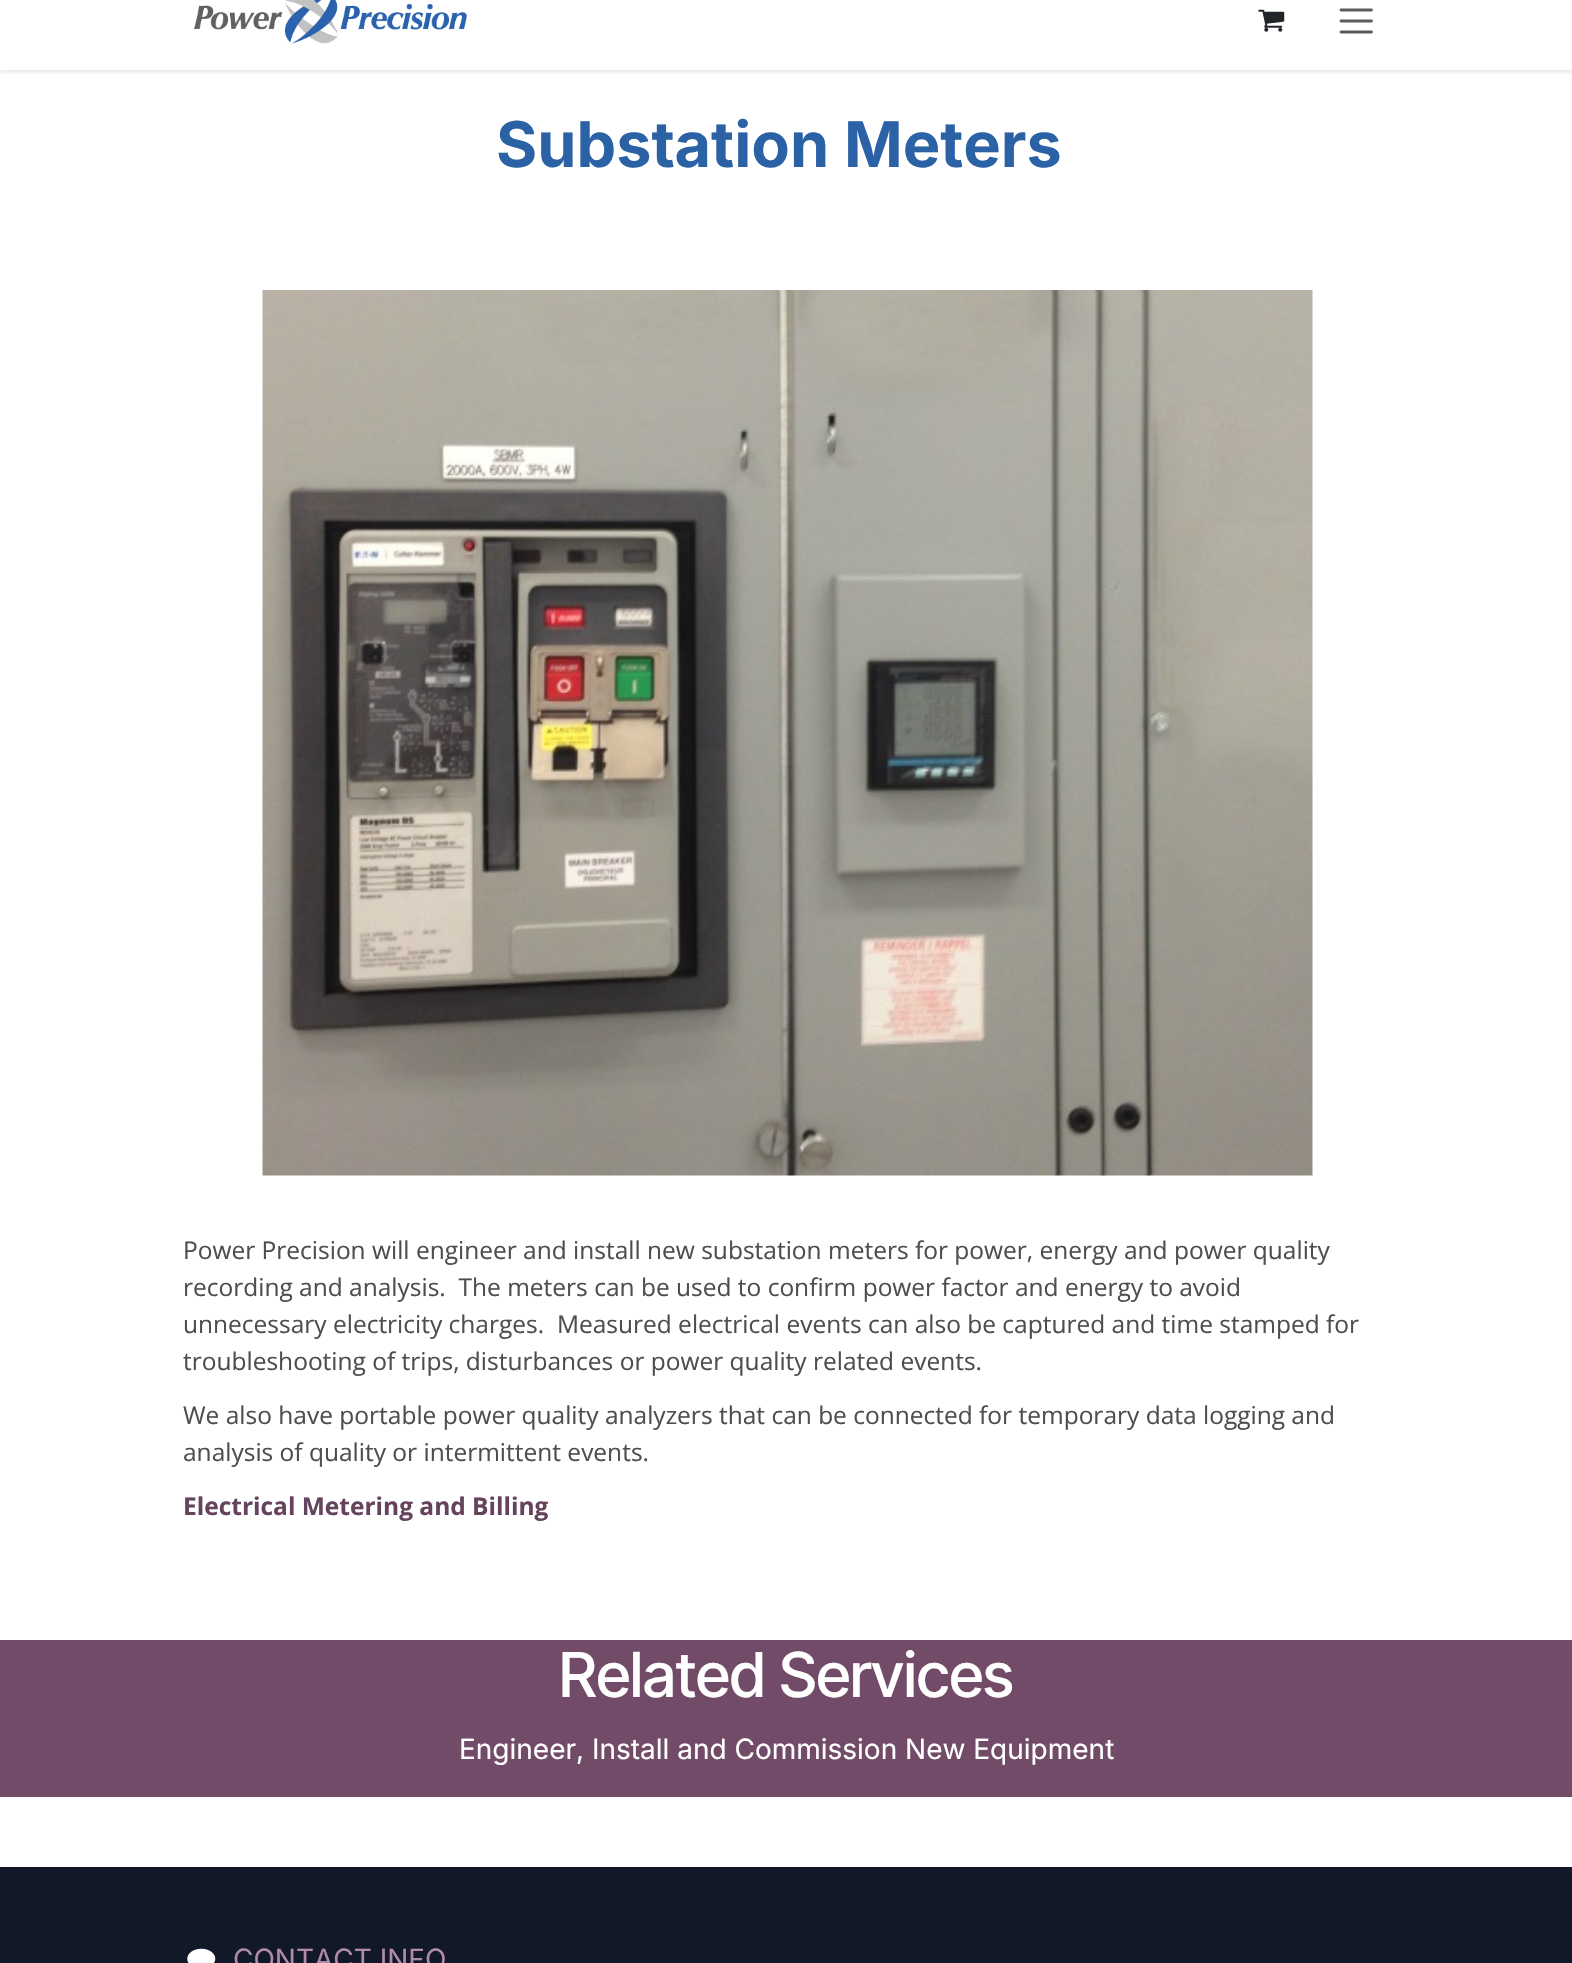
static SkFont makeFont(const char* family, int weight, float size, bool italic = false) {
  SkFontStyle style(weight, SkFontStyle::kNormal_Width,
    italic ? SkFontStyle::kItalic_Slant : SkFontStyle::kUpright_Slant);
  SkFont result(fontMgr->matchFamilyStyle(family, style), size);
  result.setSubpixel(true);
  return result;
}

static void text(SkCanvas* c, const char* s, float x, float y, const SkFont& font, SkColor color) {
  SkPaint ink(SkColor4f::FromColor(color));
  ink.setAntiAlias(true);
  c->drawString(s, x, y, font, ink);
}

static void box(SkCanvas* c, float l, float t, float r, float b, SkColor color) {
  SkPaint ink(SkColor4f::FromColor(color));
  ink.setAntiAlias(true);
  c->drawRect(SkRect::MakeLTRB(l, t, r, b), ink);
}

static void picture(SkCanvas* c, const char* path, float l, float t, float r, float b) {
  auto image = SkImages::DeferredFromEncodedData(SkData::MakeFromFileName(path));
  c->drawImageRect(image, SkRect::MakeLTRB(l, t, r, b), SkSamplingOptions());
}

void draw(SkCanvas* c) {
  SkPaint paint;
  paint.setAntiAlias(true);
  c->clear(0xffffffff);
  c->save();
  c->clipRect(SkRect::MakeLTRB(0, 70, 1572, 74));
  paint.setColor(0x1a000000);
  paint.setMaskFilter(SkMaskFilter::MakeBlur(kNormal_SkBlurStyle, 2.5f));
  c->drawRect(SkRect::MakeLTRB(0, -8, 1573, 72), paint);
  paint.setMaskFilter(nullptr);
  c->restore();
  picture(c, "img_01.png", 194, 0, 467, 44);
  picture(c, "img_02.png", 1258, 9, 1285, 32);
  paint.setStyle(SkPaint::kStroke_Style);
  paint.setStrokeWidth(2.8f);
  paint.setStrokeCap(SkPaint::kRound_Cap);
  paint.setColor(0xff595c5f);
  c->drawPath(SkPathBuilder().moveTo(1341, 10).lineTo(1371.5f, 10).moveTo(1341, 21).lineTo(1371.5f, 21).moveTo(1341, 32).lineTo(1371.5f, 32).detach(), paint);
  SkFont face1 = makeFont("Inter", 700, 63);
  text(c, "Substation Meters", 496, 167, face1, 0xff2b62a6);
  picture(c, "img_03.png", 262, 290, 1313, 1176);
  SkFont face2 = makeFont("Open Sans", 400, 24.5f);
  text(c, "Power Precision will engineer and install new substation meters for power, energy and power quality", 183, 1259, face2, 0xff4e4e4e);
  text(c, "recording and analysis.  The meters can be used to confirm power factor and energy to avoid", 183, 1296, face2, 0xff4e4e4e);
  text(c, "unnecessary electricity charges.  Measured electrical events can also be captured and time stamped for", 183, 1333, face2, 0xff4e4e4e);
  text(c, "troubleshooting of trips, disturbances or power quality related events.", 183, 1370, face2, 0xff4e4e4e);
  text(c, "We also have portable power quality analyzers that can be connected for temporary data logging and", 183, 1424, face2, 0xff4e4e4e);
  text(c, "analysis of quality or intermittent events.", 183, 1461, face2, 0xff4e4e4e);
  SkFont face3 = makeFont("Open Sans", 700, 24.5f);
  text(c, "Electrical Metering and Billing", 183, 1515, face3, 0xff65435c);
  box(c, 0, 1640, 1572, 1797, 0xff714b67);
  SkFont face4 = makeFont("Inter Tight", 500, 62);
  text(c, "Related Services", 559, 1697, face4, 0xffffffff);
  SkFont face5 = makeFont("Inter", 400, 28);
  text(c, "Engineer, Install and Commission New Equipment", 459, 1759, face5, 0xffffffff);
  box(c, 0, 1867, 1572, 1963, 0xff111827);
  picture(c, "img_04.png", 187, 1948, 216, 1963);
  text(c, "CONTACT INFO", 233, 1969, face5, 0xffb18aa7);
}
